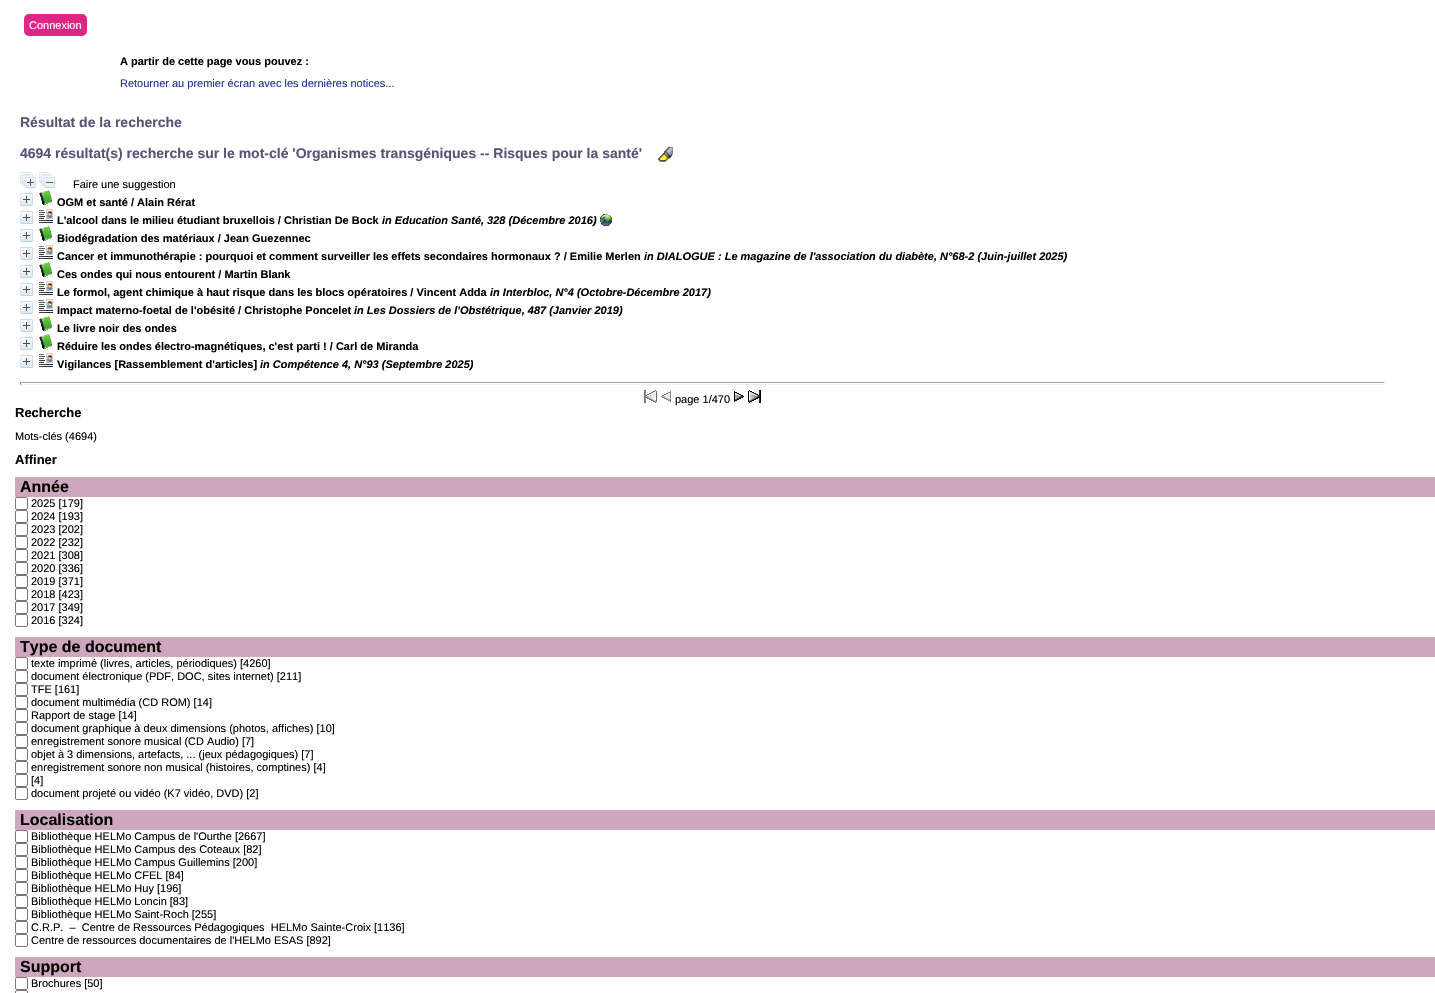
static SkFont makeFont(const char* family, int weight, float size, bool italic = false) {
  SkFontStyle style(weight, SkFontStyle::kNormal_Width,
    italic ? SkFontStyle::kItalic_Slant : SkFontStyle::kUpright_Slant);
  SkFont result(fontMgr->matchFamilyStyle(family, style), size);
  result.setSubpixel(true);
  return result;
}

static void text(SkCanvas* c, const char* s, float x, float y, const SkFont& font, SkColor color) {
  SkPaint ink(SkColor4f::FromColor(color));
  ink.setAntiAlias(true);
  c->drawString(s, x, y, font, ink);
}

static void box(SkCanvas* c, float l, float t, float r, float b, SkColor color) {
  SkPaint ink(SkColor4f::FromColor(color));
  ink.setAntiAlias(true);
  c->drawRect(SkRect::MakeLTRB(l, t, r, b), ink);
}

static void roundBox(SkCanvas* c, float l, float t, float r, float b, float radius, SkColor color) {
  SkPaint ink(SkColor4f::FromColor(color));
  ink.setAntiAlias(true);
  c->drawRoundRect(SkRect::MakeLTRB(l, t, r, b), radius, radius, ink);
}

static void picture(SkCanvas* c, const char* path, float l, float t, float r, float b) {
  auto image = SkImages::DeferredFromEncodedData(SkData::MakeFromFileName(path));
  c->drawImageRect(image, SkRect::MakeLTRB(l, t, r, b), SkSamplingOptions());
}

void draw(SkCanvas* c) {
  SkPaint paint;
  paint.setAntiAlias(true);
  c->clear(0xffffffff);
  roundBox(c, 24, 14, 87, 36, 5, 0xffde2687);
  SkFont face1 = makeFont("Liberation Sans", 400, 11);
  text(c, "Connexion", 29, 29, face1, 0xffffffff);
  SkFont face2 = makeFont("Liberation Sans", 700, 11);
  text(c, "A partir de cette page vous pouvez :", 120, 65, face2, 0xff000000);
  text(c, "Retourner au premier écran avec les dernières notices...", 120, 87, face1, 0xff23338f);
  SkFont face3 = makeFont("Liberation Sans", 700, 14);
  text(c, "Résultat de la recherche", 20, 127, face3, 0xff555577);
  text(c, "4694 résultat(s) recherche sur le mot-clé 'Organismes transgéniques -- Risques pour la santé'", 20, 158, face3, 0xff555577);
  picture(c, "img_01.png", 658, 147, 673, 162);
  picture(c, "img_02.png", 20, 172, 36, 188);
  picture(c, "img_03.png", 39, 172, 55, 188);
  text(c, "Faire une suggestion", 73, 188, face1, 0xff000000);
  picture(c, "img_04.png", 20, 193, 33, 206);
  picture(c, "img_05.png", 39, 190, 52, 205);
  text(c, "OGM et santé / Alain Rérat", 57, 206, face2, 0xff000000);
  picture(c, "img_04.png", 20, 211, 33, 224);
  picture(c, "img_06.png", 39, 209, 53, 223);
  text(c, "L'alcool dans le milieu étudiant bruxellois / Christian De Bock", 57, 224, face2, 0xff000000);
  SkFont face4 = makeFont("Liberation Sans", 700, 11, true);
  text(c, "in Education Santé, 328 (Décembre 2016)", 382, 224, face4, 0xff000000);
  picture(c, "img_07.png", 600, 214, 612, 226);
  picture(c, "img_04.png", 20, 229, 33, 242);
  picture(c, "img_05.png", 39, 226, 52, 241);
  text(c, "Biodégradation des matériaux / Jean Guezennec", 57, 242, face2, 0xff000000);
  picture(c, "img_04.png", 20, 247, 33, 260);
  picture(c, "img_06.png", 39, 245, 53, 259);
  text(c, "Cancer et immunothérapie : pourquoi et comment surveiller les effets secondaires hormonaux ? / Emilie Merlen", 57, 260, face2, 0xff000000);
  text(c, "in DIALOGUE : Le magazine de l'association du diabète, N°68-2 (Juin-juillet 2025)", 644, 260, face4, 0xff000000);
  picture(c, "img_04.png", 20, 265, 33, 278);
  picture(c, "img_05.png", 39, 262, 52, 277);
  text(c, "Ces ondes qui nous entourent / Martin Blank", 57, 278, face2, 0xff000000);
  picture(c, "img_04.png", 20, 283, 33, 296);
  picture(c, "img_06.png", 39, 281, 53, 295);
  text(c, "Le formol, agent chimique à haut risque dans les blocs opératoires / Vincent Adda", 57, 296, face2, 0xff000000);
  text(c, "in Interbloc, N°4 (Octobre-Décembre 2017)", 490, 296, face4, 0xff000000);
  picture(c, "img_04.png", 20, 301, 33, 314);
  picture(c, "img_06.png", 39, 299, 53, 313);
  text(c, "Impact materno-foetal de l'obésité / Christophe Poncelet", 57, 314, face2, 0xff000000);
  text(c, "in Les Dossiers de l'Obstétrique, 487 (Janvier 2019)", 354, 314, face4, 0xff000000);
  picture(c, "img_04.png", 20, 319, 33, 332);
  picture(c, "img_05.png", 39, 316, 52, 331);
  text(c, "Le livre noir des ondes", 57, 332, face2, 0xff000000);
  picture(c, "img_04.png", 20, 337, 33, 350);
  picture(c, "img_05.png", 39, 334, 52, 349);
  text(c, "Réduire les ondes électro-magnétiques, c'est parti ! / Carl de Miranda", 57, 350, face2, 0xff000000);
  picture(c, "img_04.png", 20, 355, 33, 368);
  picture(c, "img_06.png", 39, 353, 53, 367);
  text(c, "Vigilances [Rassemblement d'articles]", 57, 368, face2, 0xff000000);
  text(c, "in Compétence 4, N°93 (Septembre 2025)", 260, 368, face4, 0xff000000);
  box(c, 20, 382, 1385, 383, 0xff9f9f9f);
  box(c, 1384, 382, 1385, 385, 0xffeeeeee);
  box(c, 20, 384, 1385, 385, 0xffeeeeee);
  box(c, 20, 382, 21, 385, 0xff9f9f9f);
  picture(c, "img_08.png", 644, 390, 657, 403);
  picture(c, "img_09.png", 661, 391, 671, 402);
  text(c, "page 1/470", 675, 403, face1, 0xff000000);
  picture(c, "img_10.png", 734, 391, 744, 402);
  picture(c, "img_11.png", 748, 390, 761, 403);
  SkFont face5 = makeFont("Liberation Sans", 700, 13);
  text(c, "Recherche", 15, 417, face5, 0xff000000);
  text(c, "Mots-clés (4694)", 15, 440, face1, 0xff000000);
  text(c, "Affiner", 15, 464, face5, 0xff000000);
  box(c, 15, 477, 1435, 497, 0xffcea7bc);
  SkFont face6 = makeFont("Liberation Sans", 700, 16);
  text(c, "Année", 20, 492, face6, 0xff000000);
  paint.setStyle(SkPaint::kStroke_Style);
  paint.setStrokeWidth(1);
  paint.setColor(0xff767676);
  c->drawRoundRect(SkRect::MakeLTRB(15.5f, 497.5f, 27.5f, 509.5f), 1.5f, 1.5f, paint);
  text(c, "2025 [179]", 31, 507, face1, 0xff000000);
  c->drawRoundRect(SkRect::MakeLTRB(15.5f, 510.5f, 27.5f, 522.5f), 1.5f, 1.5f, paint);
  text(c, "2024 [193]", 31, 520, face1, 0xff000000);
  c->drawRoundRect(SkRect::MakeLTRB(15.5f, 523.5f, 27.5f, 535.5f), 1.5f, 1.5f, paint);
  text(c, "2023 [202]", 31, 533, face1, 0xff000000);
  c->drawRoundRect(SkRect::MakeLTRB(15.5f, 536.5f, 27.5f, 548.5f), 1.5f, 1.5f, paint);
  text(c, "2022 [232]", 31, 546, face1, 0xff000000);
  c->drawRoundRect(SkRect::MakeLTRB(15.5f, 549.5f, 27.5f, 561.5f), 1.5f, 1.5f, paint);
  text(c, "2021 [308]", 31, 559, face1, 0xff000000);
  c->drawRoundRect(SkRect::MakeLTRB(15.5f, 562.5f, 27.5f, 574.5f), 1.5f, 1.5f, paint);
  text(c, "2020 [336]", 31, 572, face1, 0xff000000);
  c->drawRoundRect(SkRect::MakeLTRB(15.5f, 575.5f, 27.5f, 587.5f), 1.5f, 1.5f, paint);
  text(c, "2019 [371]", 31, 585, face1, 0xff000000);
  c->drawRoundRect(SkRect::MakeLTRB(15.5f, 588.5f, 27.5f, 600.5f), 1.5f, 1.5f, paint);
  text(c, "2018 [423]", 31, 598, face1, 0xff000000);
  c->drawRoundRect(SkRect::MakeLTRB(15.5f, 601.5f, 27.5f, 613.5f), 1.5f, 1.5f, paint);
  text(c, "2017 [349]", 31, 611, face1, 0xff000000);
  c->drawRoundRect(SkRect::MakeLTRB(15.5f, 614.5f, 27.5f, 626.5f), 1.5f, 1.5f, paint);
  text(c, "2016 [324]", 31, 624, face1, 0xff000000);
  box(c, 15, 637, 1435, 657, 0xffcea7bc);
  text(c, "Type de document", 20, 652, face6, 0xff000000);
  c->drawRoundRect(SkRect::MakeLTRB(15.5f, 657.5f, 27.5f, 669.5f), 1.5f, 1.5f, paint);
  text(c, "texte imprimé (livres, articles, périodiques) [4260]", 31, 667, face1, 0xff000000);
  c->drawRoundRect(SkRect::MakeLTRB(15.5f, 670.5f, 27.5f, 682.5f), 1.5f, 1.5f, paint);
  text(c, "document électronique (PDF, DOC, sites internet) [211]", 31, 680, face1, 0xff000000);
  c->drawRoundRect(SkRect::MakeLTRB(15.5f, 683.5f, 27.5f, 695.5f), 1.5f, 1.5f, paint);
  text(c, "TFE [161]", 31, 693, face1, 0xff000000);
  c->drawRoundRect(SkRect::MakeLTRB(15.5f, 696.5f, 27.5f, 708.5f), 1.5f, 1.5f, paint);
  text(c, "document multimédia (CD ROM) [14]", 31, 706, face1, 0xff000000);
  c->drawRoundRect(SkRect::MakeLTRB(15.5f, 709.5f, 27.5f, 721.5f), 1.5f, 1.5f, paint);
  text(c, "Rapport de stage [14]", 31, 719, face1, 0xff000000);
  c->drawRoundRect(SkRect::MakeLTRB(15.5f, 722.5f, 27.5f, 734.5f), 1.5f, 1.5f, paint);
  text(c, "document graphique à deux dimensions (photos, affiches) [10]", 31, 732, face1, 0xff000000);
  c->drawRoundRect(SkRect::MakeLTRB(15.5f, 735.5f, 27.5f, 747.5f), 1.5f, 1.5f, paint);
  text(c, "enregistrement sonore musical (CD Audio) [7]", 31, 745, face1, 0xff000000);
  c->drawRoundRect(SkRect::MakeLTRB(15.5f, 748.5f, 27.5f, 760.5f), 1.5f, 1.5f, paint);
  text(c, "objet à 3 dimensions, artefacts, ... (jeux pédagogiques) [7]", 31, 758, face1, 0xff000000);
  c->drawRoundRect(SkRect::MakeLTRB(15.5f, 761.5f, 27.5f, 773.5f), 1.5f, 1.5f, paint);
  text(c, "enregistrement sonore non musical (histoires, comptines) [4]", 31, 771, face1, 0xff000000);
  c->drawRoundRect(SkRect::MakeLTRB(15.5f, 774.5f, 27.5f, 786.5f), 1.5f, 1.5f, paint);
  text(c, "[4]", 31, 784, face1, 0xff000000);
  c->drawRoundRect(SkRect::MakeLTRB(15.5f, 787.5f, 27.5f, 799.5f), 1.5f, 1.5f, paint);
  text(c, "document projeté ou vidéo (K7 vidéo, DVD) [2]", 31, 797, face1, 0xff000000);
  box(c, 15, 810, 1435, 830, 0xffcea7bc);
  text(c, "Localisation", 20, 825, face6, 0xff000000);
  c->drawRoundRect(SkRect::MakeLTRB(15.5f, 830.5f, 27.5f, 842.5f), 1.5f, 1.5f, paint);
  text(c, "Bibliothèque HELMo Campus de l'Ourthe [2667]", 31, 840, face1, 0xff000000);
  c->drawRoundRect(SkRect::MakeLTRB(15.5f, 843.5f, 27.5f, 855.5f), 1.5f, 1.5f, paint);
  text(c, "Bibliothèque HELMo Campus des Coteaux [82]", 31, 853, face1, 0xff000000);
  c->drawRoundRect(SkRect::MakeLTRB(15.5f, 856.5f, 27.5f, 868.5f), 1.5f, 1.5f, paint);
  text(c, "Bibliothèque HELMo Campus Guillemins [200]", 31, 866, face1, 0xff000000);
  c->drawRoundRect(SkRect::MakeLTRB(15.5f, 869.5f, 27.5f, 881.5f), 1.5f, 1.5f, paint);
  text(c, "Bibliothèque HELMo CFEL [84]", 31, 879, face1, 0xff000000);
  c->drawRoundRect(SkRect::MakeLTRB(15.5f, 882.5f, 27.5f, 894.5f), 1.5f, 1.5f, paint);
  text(c, "Bibliothèque HELMo Huy [196]", 31, 892, face1, 0xff000000);
  c->drawRoundRect(SkRect::MakeLTRB(15.5f, 895.5f, 27.5f, 907.5f), 1.5f, 1.5f, paint);
  text(c, "Bibliothèque HELMo Loncin [83]", 31, 905, face1, 0xff000000);
  c->drawRoundRect(SkRect::MakeLTRB(15.5f, 908.5f, 27.5f, 920.5f), 1.5f, 1.5f, paint);
  text(c, "Bibliothèque HELMo Saint-Roch [255]", 31, 918, face1, 0xff000000);
  c->drawRoundRect(SkRect::MakeLTRB(15.5f, 921.5f, 27.5f, 933.5f), 1.5f, 1.5f, paint);
  text(c, "C.R.P.  –  Centre de Ressources Pédagogiques  HELMo Sainte-Croix [1136]", 31, 931, face1, 0xff000000);
  c->drawRoundRect(SkRect::MakeLTRB(15.5f, 934.5f, 27.5f, 946.5f), 1.5f, 1.5f, paint);
  text(c, "Centre de ressources documentaires de l'HELMo ESAS [892]", 31, 944, face1, 0xff000000);
  box(c, 15, 957, 1435, 977, 0xffcea7bc);
  text(c, "Support", 20, 972, face6, 0xff000000);
  c->drawRoundRect(SkRect::MakeLTRB(15.5f, 977.5f, 27.5f, 989.5f), 1.5f, 1.5f, paint);
  text(c, "Brochures [50]", 31, 987, face1, 0xff000000);
  c->drawRoundRect(SkRect::MakeLTRB(15.5f, 990.5f, 27.5f, 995.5f), 1.5f, 1.5f, paint);
}
